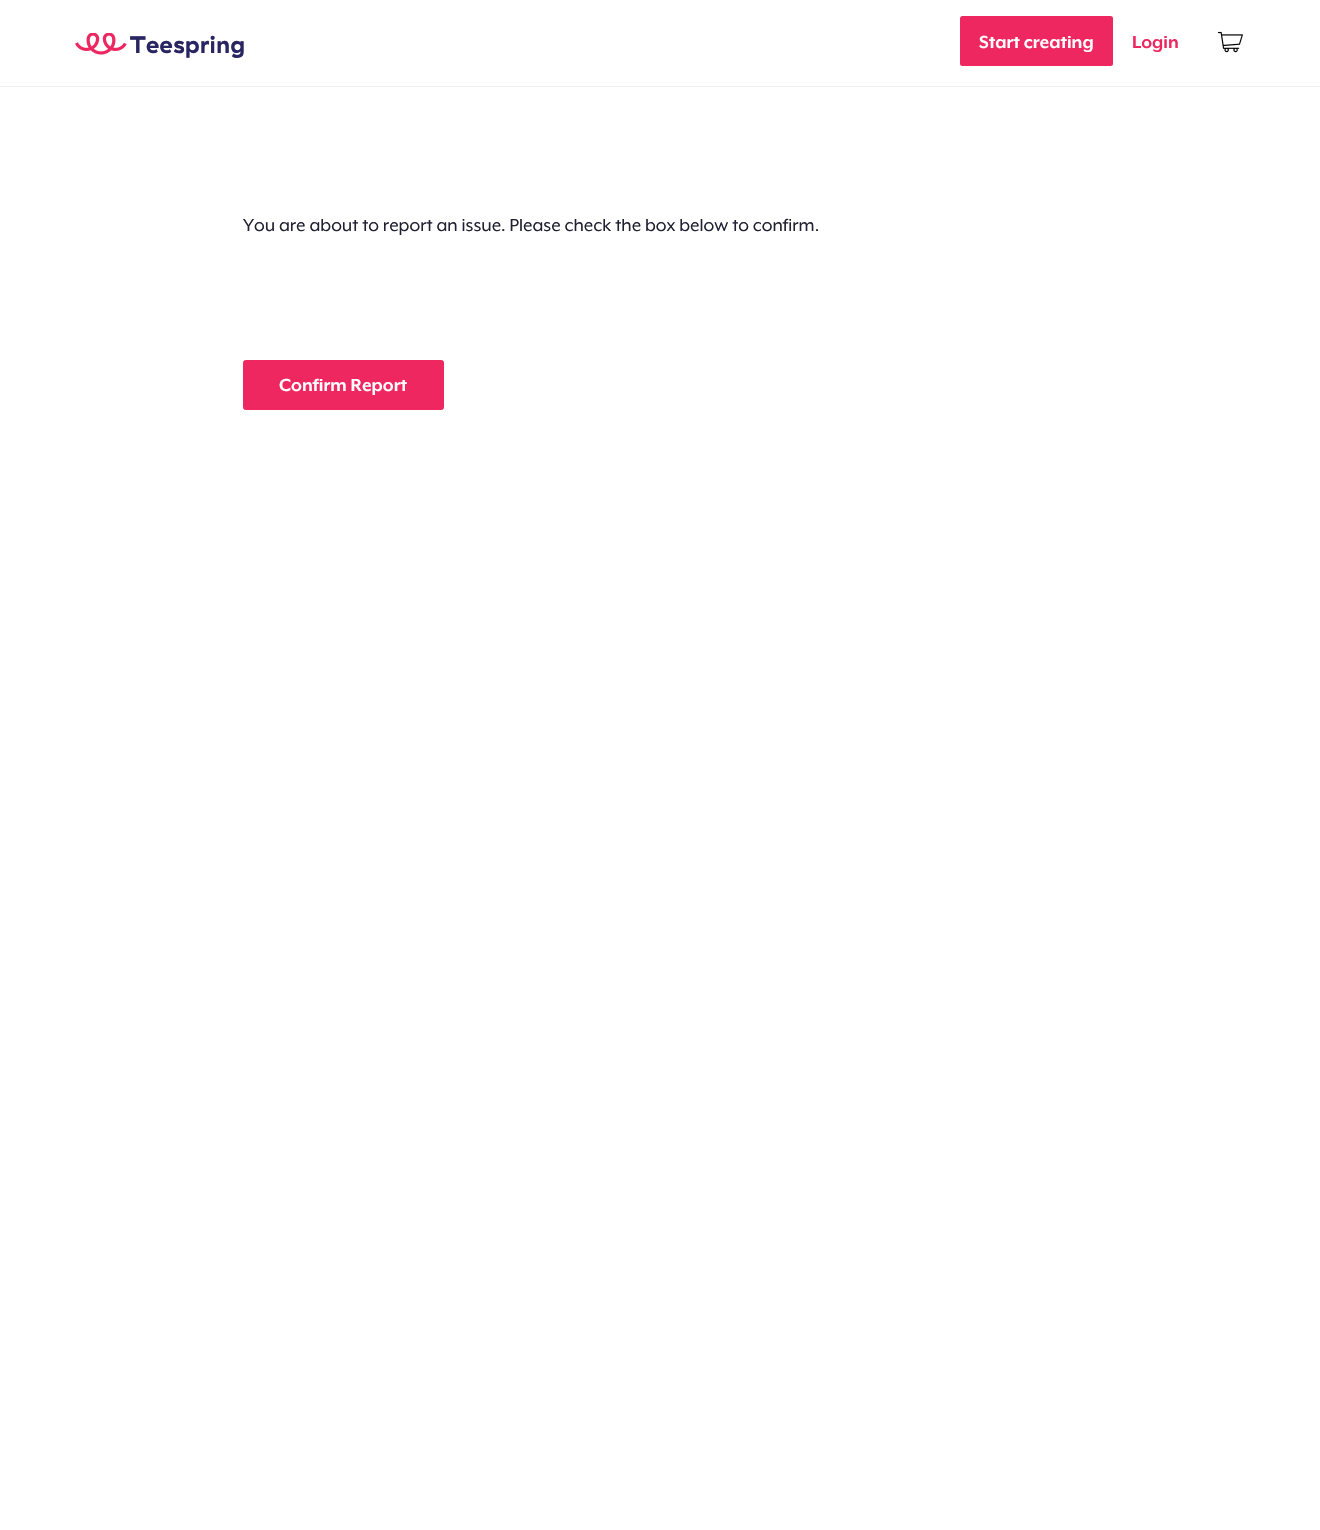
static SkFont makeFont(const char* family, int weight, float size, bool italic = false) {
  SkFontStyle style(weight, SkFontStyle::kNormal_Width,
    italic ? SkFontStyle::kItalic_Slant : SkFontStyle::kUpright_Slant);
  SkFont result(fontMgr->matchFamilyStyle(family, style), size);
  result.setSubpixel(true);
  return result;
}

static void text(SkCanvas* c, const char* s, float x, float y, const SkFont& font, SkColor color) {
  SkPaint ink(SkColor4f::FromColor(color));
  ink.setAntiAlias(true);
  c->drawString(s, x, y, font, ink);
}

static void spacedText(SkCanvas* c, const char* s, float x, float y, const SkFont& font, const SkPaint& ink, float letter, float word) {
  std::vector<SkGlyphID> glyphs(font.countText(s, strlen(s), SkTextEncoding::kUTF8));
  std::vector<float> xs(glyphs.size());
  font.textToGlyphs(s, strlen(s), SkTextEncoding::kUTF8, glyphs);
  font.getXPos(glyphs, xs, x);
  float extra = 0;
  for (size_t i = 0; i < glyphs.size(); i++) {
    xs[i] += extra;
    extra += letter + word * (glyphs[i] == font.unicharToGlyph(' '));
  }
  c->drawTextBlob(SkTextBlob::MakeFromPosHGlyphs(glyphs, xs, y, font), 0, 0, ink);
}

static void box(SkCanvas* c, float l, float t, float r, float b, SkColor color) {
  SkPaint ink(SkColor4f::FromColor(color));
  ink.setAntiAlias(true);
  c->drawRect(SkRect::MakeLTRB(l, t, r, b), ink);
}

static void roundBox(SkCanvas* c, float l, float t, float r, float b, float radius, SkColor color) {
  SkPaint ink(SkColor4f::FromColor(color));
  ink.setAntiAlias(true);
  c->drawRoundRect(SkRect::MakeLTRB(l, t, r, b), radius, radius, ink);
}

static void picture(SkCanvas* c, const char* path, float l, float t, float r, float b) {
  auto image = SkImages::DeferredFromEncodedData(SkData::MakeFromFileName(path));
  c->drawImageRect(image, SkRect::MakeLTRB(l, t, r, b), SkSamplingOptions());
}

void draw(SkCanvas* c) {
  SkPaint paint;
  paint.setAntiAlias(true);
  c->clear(0xffffffff);
  box(c, 0, 86, 1320, 87, 0xffedeff3);
  picture(c, "img_01.png", 75, 33, 127, 55);
  SkFont face1 = makeFont("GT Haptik", 700, 23.75f);
  paint.setColor(0xff282562);
  spacedText(c, "Teespring", 130, 53, face1, paint, 0.4f, 0);
  roundBox(c, 960, 16, 1113, 66, 2.5f, 0xffee2761);
  SkFont face2 = makeFont("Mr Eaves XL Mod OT", 700, 20);
  text(c, "Start creating", 979, 48, face2, 0xffffffff);
  text(c, "Login", 1132, 48, face2, 0xffee2761);
  picture(c, "img_02.png", 1217, 31, 1243, 53);
  SkFont face3 = makeFont("Mr Eaves XL Mod OT", 400, 20);
  text(c, "You are about to report an issue. Please check the box below to confirm.", 243, 231, face3, 0xff212032);
  paint.setColor(0xffee2761);
  c->drawRoundRect(SkRect::MakeLTRB(243.5f, 360.5f, 443.5f, 409.5f), 2, 2, paint);
  paint.setStyle(SkPaint::kStroke_Style);
  paint.setStrokeWidth(1);
  c->drawRoundRect(SkRect::MakeLTRB(243.5f, 360.5f, 443.5f, 409.5f), 2, 2, paint);
  text(c, "Confirm Report", 279, 391, face2, 0xffffffff);
}
